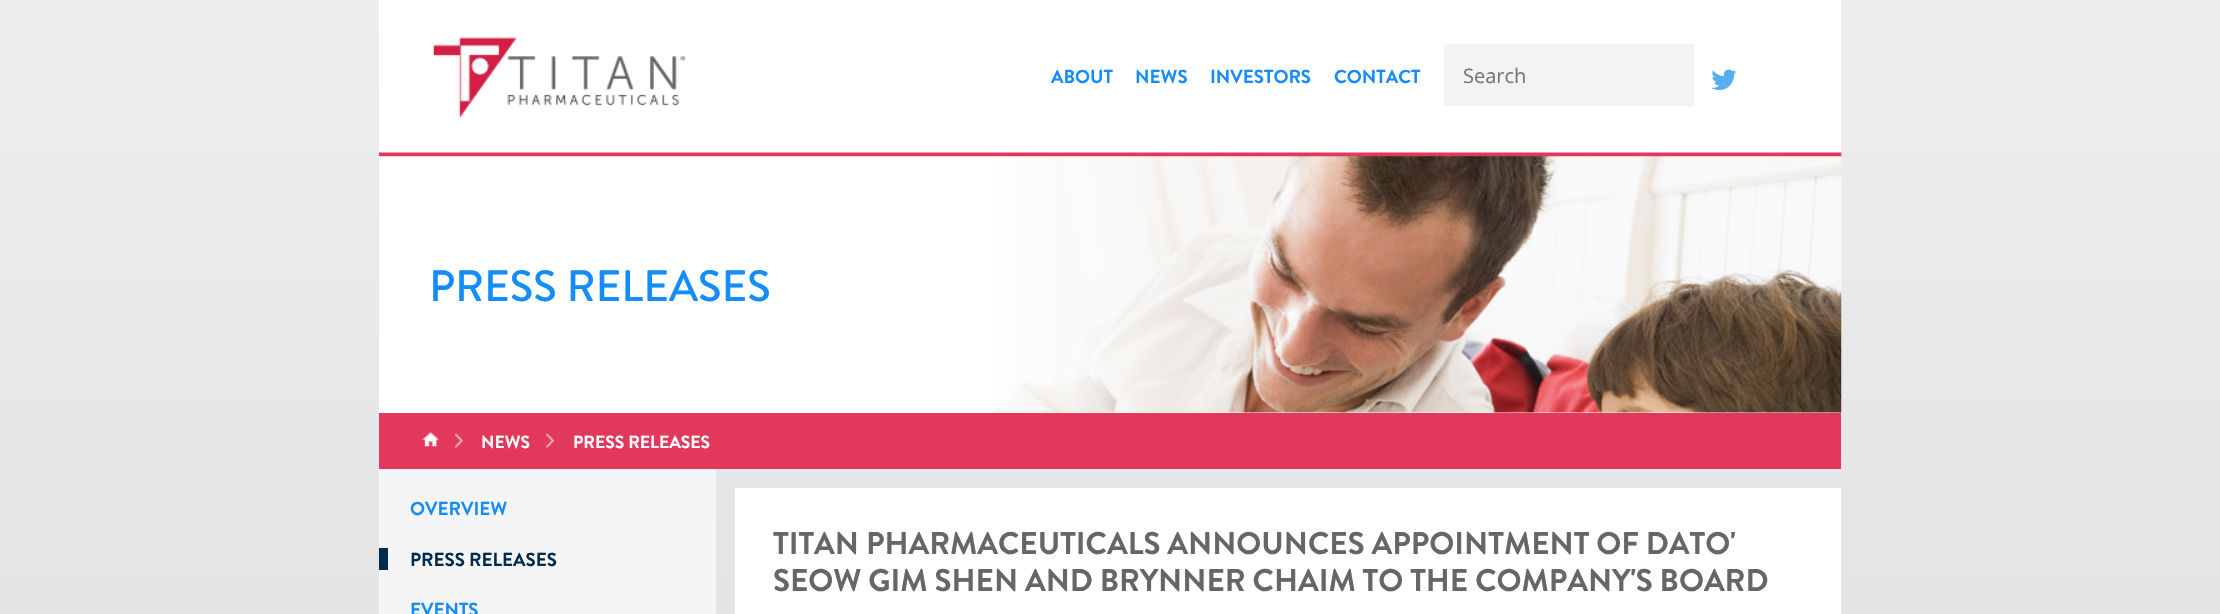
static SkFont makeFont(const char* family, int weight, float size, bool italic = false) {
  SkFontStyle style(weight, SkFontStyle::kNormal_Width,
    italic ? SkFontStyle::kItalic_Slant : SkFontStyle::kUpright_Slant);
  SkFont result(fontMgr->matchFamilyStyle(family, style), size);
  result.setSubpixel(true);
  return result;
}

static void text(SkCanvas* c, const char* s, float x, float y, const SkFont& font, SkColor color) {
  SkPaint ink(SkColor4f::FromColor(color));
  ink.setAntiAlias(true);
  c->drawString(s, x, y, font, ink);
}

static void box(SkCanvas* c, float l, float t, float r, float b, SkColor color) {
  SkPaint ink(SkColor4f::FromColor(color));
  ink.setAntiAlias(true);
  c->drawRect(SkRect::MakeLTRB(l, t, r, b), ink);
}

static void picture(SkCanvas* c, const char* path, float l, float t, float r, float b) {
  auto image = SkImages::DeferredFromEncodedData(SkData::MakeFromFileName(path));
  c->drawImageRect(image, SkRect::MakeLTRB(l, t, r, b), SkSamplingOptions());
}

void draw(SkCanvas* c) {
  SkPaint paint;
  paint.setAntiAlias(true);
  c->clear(0xffffffff);
  {
    const SkColor colors[] = {0xffeeeeee, 0xffbbbbbb};
    const float stops[] = {0, 1};
    const SkPoint ends[] = {{1110, 0}, {1110, 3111}};
    paint.setShader(SkGradientShader::MakeLinear(ends, colors, stops, 2, SkTileMode::kClamp));
    paint.setAlpha(255);
  }
  c->drawRect(SkRect::MakeLTRB(0, 0, 2220, 614), paint);
  box(c, 379, 156, 1841, 413, 0xffffffff);
  picture(c, "img_04.png", 992, 36, 1842, 413);
  box(c, 379, 0, 1841, 156, 0xffffffff);
  picture(c, "img_01.png", 379, 152, 1842, 157);
  picture(c, "img_02.png", 433, 37, 685, 118);
  SkFont face1 = makeFont("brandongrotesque", 700, 18.75f);
  text(c, "ABOUT", 1051, 83, face1, 0xff148cfa);
  text(c, "NEWS", 1135, 83, face1, 0xff148cfa);
  text(c, "INVESTORS", 1210, 83, face1, 0xff148cfa);
  text(c, "CONTACT", 1334, 83, face1, 0xff148cfa);
  box(c, 1444, 44, 1694, 106, 0xfff3f3f3);
  SkFont face2 = makeFont("Open Sans", 400, 20);
  text(c, "Search", 1463, 83, face2, 0xff757575);
  picture(c, "img_03.png", 1711, 69, 1737, 90);
  SkFont face3 = makeFont("brandongrotesque", 500, 43.75f);
  text(c, "PRESS RELEASES", 429, 301, face3, 0xff148cfa);
  box(c, 379, 413, 1841, 469, 0xffe1385c);
  picture(c, "img_05.png", 422, 432, 439, 447);
  picture(c, "img_06.png", 455, 433, 463, 448);
  SkFont face4 = makeFont("brandongrotesque", 700, 17.5f);
  text(c, "NEWS", 481, 448, face4, 0xffffffff);
  picture(c, "img_07.png", 546, 433, 554, 448);
  text(c, "PRESS RELEASES", 573, 448, face4, 0xffffffff);
  box(c, 379, 469, 716, 614, 0xfff5f5f5);
  text(c, "OVERVIEW", 410, 515, face1, 0xff148cfa);
  box(c, 379, 548, 388, 570, 0xff002b51);
  text(c, "PRESS RELEASES", 410, 566, face1, 0xff002b51);
  text(c, "EVENTS", 410, 616, face1, 0xff148cfa);
  box(c, 735, 488, 1841, 614, 0xffffffff);
  SkFont face5 = makeFont("brandongrotesque", 700, 31.25f);
  text(c, "TITAN PHARMACEUTICALS ANNOUNCES APPOINTMENT OF DATO'", 773, 554, face5, 0xff666666);
  text(c, "SEOW GIM SHEN AND BRYNNER CHAIM TO THE COMPANY'S BOARD", 773, 591, face5, 0xff666666);
}
